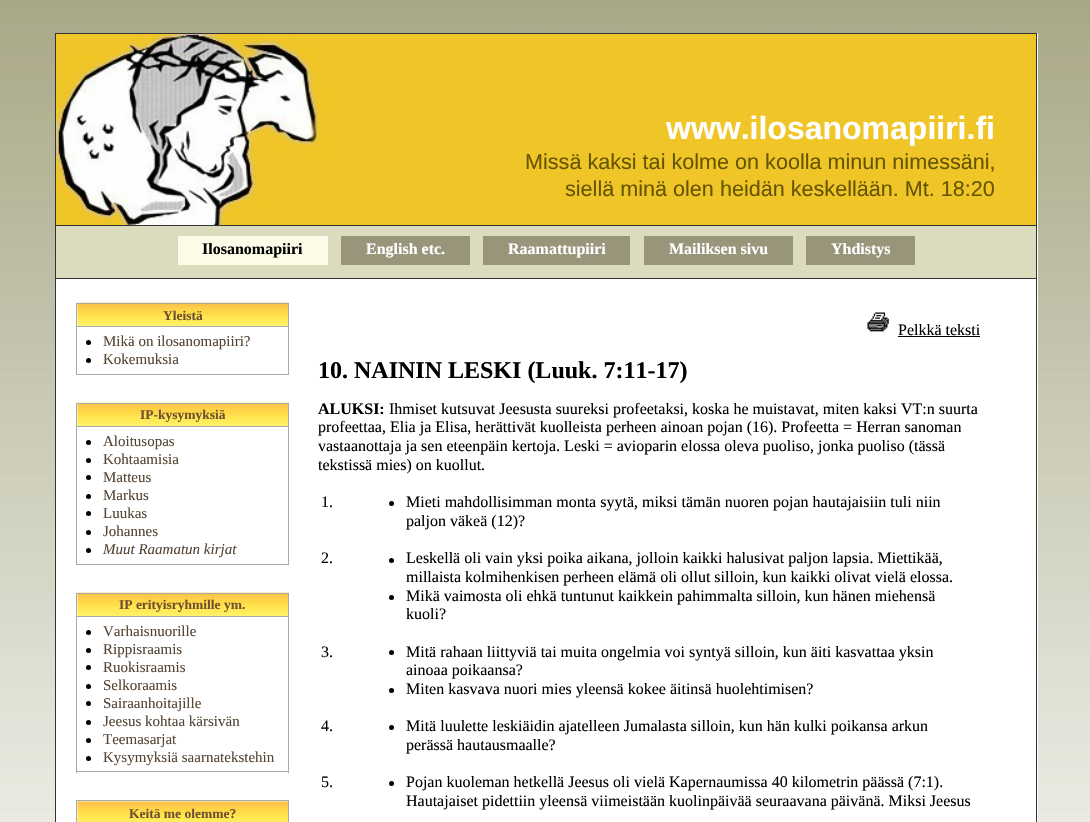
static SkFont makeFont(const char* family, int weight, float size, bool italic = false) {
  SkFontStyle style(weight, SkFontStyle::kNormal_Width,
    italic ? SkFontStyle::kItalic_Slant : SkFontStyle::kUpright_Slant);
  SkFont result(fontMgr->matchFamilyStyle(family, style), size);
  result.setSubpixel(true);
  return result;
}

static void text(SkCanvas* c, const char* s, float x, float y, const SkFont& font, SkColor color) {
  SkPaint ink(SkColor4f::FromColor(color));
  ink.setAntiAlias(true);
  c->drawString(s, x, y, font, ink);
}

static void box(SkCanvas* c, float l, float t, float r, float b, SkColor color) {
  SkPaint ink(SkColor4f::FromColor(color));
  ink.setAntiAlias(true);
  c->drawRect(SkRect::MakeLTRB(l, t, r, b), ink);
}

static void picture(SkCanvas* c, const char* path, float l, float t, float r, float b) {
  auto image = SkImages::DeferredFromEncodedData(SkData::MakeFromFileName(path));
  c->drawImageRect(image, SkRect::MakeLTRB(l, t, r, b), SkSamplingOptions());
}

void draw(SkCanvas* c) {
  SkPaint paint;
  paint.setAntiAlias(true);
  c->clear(0xffffffff);
  picture(c, "img_01.png", 0, 0, 1090, 822);
  box(c, 56, 33, 1038, 822, 0xffffffff);
  box(c, 1036, 33, 1037, 822, 0xff333333);
  box(c, 55, 33, 56, 822, 0xff333333);
  box(c, 56, 34, 1036, 225, 0xfff0c528);
  picture(c, "img_02.png", 56, 34, 350, 225);
  box(c, 56, 33, 1036, 34, 0xff333333);
  box(c, 56, 225, 1036, 226, 0xff333333);
  SkFont face1 = makeFont("Liberation Sans", 700, 32);
  text(c, "www.ilosanomapiiri.fi", 666, 139, face1, 0xffffffff);
  SkFont face2 = makeFont("Liberation Sans", 400, 21.6f);
  text(c, "Missä kaksi tai kolme on koolla minun nimessäni,", 525, 169, face2, 0xff665500);
  text(c, "siellä minä olen heidän keskellään. Mt. 18:20", 565, 196, face2, 0xff665500);
  box(c, 56, 226, 1036, 278, 0xffdbdbbd);
  box(c, 56, 278, 1036, 279, 0xff333333);
  box(c, 178, 236, 328, 265, 0xfffcfbe8);
  SkFont face3 = makeFont("Liberation Serif", 700, 16);
  text(c, "Ilosanomapiiri", 202, 254, face3, 0xff000000);
  box(c, 341, 236, 470, 265, 0xff99957a);
  text(c, "English etc.", 366, 254, face3, 0xffffffff);
  box(c, 483, 236, 630, 265, 0xff99957a);
  text(c, "Raamattupiiri", 508, 254, face3, 0xffffffff);
  box(c, 644, 236, 793, 265, 0xff99957a);
  text(c, "Mailiksen sivu", 669, 254, face3, 0xffffffff);
  box(c, 806, 236, 915, 265, 0xff99957a);
  text(c, "Yhdistys", 831, 254, face3, 0xffffffff);
  picture(c, "img_03.png", 77, 302, 289, 326);
  box(c, 76, 303, 289, 304, 0xffaaaaaa);
  box(c, 288, 303, 289, 375, 0xffaaaaaa);
  box(c, 76, 374, 289, 375, 0xffaaaaaa);
  box(c, 76, 303, 77, 375, 0xffaaaaaa);
  SkFont face4 = makeFont("Liberation Serif", 700, 13.5f);
  text(c, "Yleistä", 163, 320, face4, 0xff705030);
  box(c, 76, 326, 289, 327, 0xffaaaaaa);
  paint.setColor(0xff000000);
  c->drawCircle(88.5f, 342.5f, 2.5f, paint);
  SkFont face5 = makeFont("Liberation Serif", 400, 15);
  text(c, "Mikä on ilosanomapiiri?", 103, 346, face5, 0xff554433);
  c->drawCircle(88.5f, 360.5f, 2.5f, paint);
  text(c, "Kokemuksia", 103, 364, face5, 0xff554433);
  picture(c, "img_03.png", 77, 402, 289, 426);
  box(c, 76, 403, 289, 404, 0xffaaaaaa);
  box(c, 288, 403, 289, 565, 0xffaaaaaa);
  box(c, 76, 564, 289, 565, 0xffaaaaaa);
  box(c, 76, 403, 77, 565, 0xffaaaaaa);
  text(c, "IP-kysymyksiä", 140, 419, face4, 0xff705030);
  box(c, 76, 426, 289, 427, 0xffaaaaaa);
  c->drawCircle(88.5f, 442.5f, 2.5f, paint);
  text(c, "Aloitusopas", 103, 446, face5, 0xff554433);
  c->drawCircle(88.5f, 460.5f, 2.5f, paint);
  text(c, "Kohtaamisia", 103, 464, face5, 0xff554433);
  c->drawCircle(88.5f, 477.5f, 2.5f, paint);
  text(c, "Matteus", 103, 482, face5, 0xff554433);
  c->drawCircle(88.5f, 496.5f, 2.5f, paint);
  text(c, "Markus", 103, 500, face5, 0xff554433);
  c->drawCircle(88.5f, 513.5f, 2.5f, paint);
  text(c, "Luukas", 103, 518, face5, 0xff554433);
  c->drawCircle(88.5f, 532.5f, 2.5f, paint);
  text(c, "Johannes", 103, 536, face5, 0xff554433);
  c->drawCircle(88.5f, 550.5f, 2.5f, paint);
  SkFont face6 = makeFont("Liberation Serif", 400, 15, true);
  text(c, "Muut Raamatun kirjat", 103, 554, face6, 0xff554433);
  picture(c, "img_03.png", 77, 592, 289, 616);
  box(c, 76, 593, 289, 594, 0xffaaaaaa);
  box(c, 288, 593, 289, 773, 0xffaaaaaa);
  box(c, 76, 771, 289, 772, 0xffaaaaaa);
  box(c, 76, 593, 77, 773, 0xffaaaaaa);
  text(c, "IP erityisryhmille ym.", 119, 609, face4, 0xff705030);
  box(c, 76, 616, 289, 617, 0xffaaaaaa);
  c->drawCircle(88.5f, 632.5f, 2.5f, paint);
  text(c, "Varhaisnuorille", 103, 636, face5, 0xff554433);
  c->drawCircle(88.5f, 650.5f, 2.5f, paint);
  text(c, "Rippisraamis", 103, 654, face5, 0xff554433);
  c->drawCircle(88.5f, 667.5f, 2.5f, paint);
  text(c, "Ruokisraamis", 103, 672, face5, 0xff554433);
  c->drawCircle(88.5f, 686.5f, 2.5f, paint);
  text(c, "Selkoraamis", 103, 690, face5, 0xff554433);
  c->drawCircle(88.5f, 703.5f, 2.5f, paint);
  text(c, "Sairaanhoitajille", 103, 708, face5, 0xff554433);
  c->drawCircle(88.5f, 722.5f, 2.5f, paint);
  text(c, "Jeesus kohtaa kärsivän", 103, 726, face5, 0xff554433);
  c->drawCircle(88.5f, 740.5f, 2.5f, paint);
  text(c, "Teemasarjat", 103, 744, face5, 0xff554433);
  c->drawCircle(88.5f, 758.5f, 2.5f, paint);
  text(c, "Kysymyksiä saarnatekstehin", 103, 762, face5, 0xff554433);
  box(c, 76, 800, 289, 801, 0xffaaaaaa);
  box(c, 288, 800, 289, 822, 0xffaaaaaa);
  box(c, 76, 800, 77, 822, 0xffaaaaaa);
  picture(c, "img_04.png", 77, 801, 288, 822);
  text(c, "Keitä me olemme?", 129, 818, face4, 0xff705030);
  picture(c, "img_05.png", 867, 312, 889, 332);
  SkFont face7 = makeFont("Liberation Serif", 400, 16);
  text(c, "Pelkkä teksti", 898, 335, face7, 0xff000000);
  box(c, 898, 336, 980, 337, 0xff000000);
  SkFont face8 = makeFont("Liberation Serif", 700, 24);
  text(c, "10. NAININ LESKI (Luuk. 7:11-17)", 318, 378, face8, 0xff000000);
  text(c, "ALUKSI:", 318, 414, face3, 0xff000000);
  text(c, "Ihmiset kutsuvat Jeesusta suureksi profeetaksi, koska he muistavat, miten kaksi VT:n suurta", 389, 414, face7, 0xff000000);
  text(c, "profeettaa, Elia ja Elisa, herättivät kuolleista perheen ainoan pojan (16). Profeetta = Herran sanoman", 318, 432, face7, 0xff000000);
  text(c, "vastaanottaja ja sen eteenpäin kertoja. Leski = avioparin elossa oleva puoliso, jonka puoliso (tässä", 318, 451, face7, 0xff000000);
  text(c, "tekstissä mies) on kuollut.", 318, 470, face7, 0xff000000);
  text(c, "1.", 321, 507, face7, 0xff000000);
  c->drawCircle(391.5f, 503.5f, 2.5f, paint);
  text(c, "Mieti mahdollisimman monta syytä, miksi tämän nuoren pojan hautajaisiin tuli niin", 406, 507, face7, 0xff000000);
  text(c, "paljon väkeä (12)?", 406, 526, face7, 0xff000000);
  text(c, "2.", 321, 563, face7, 0xff000000);
  c->drawCircle(391.5f, 560.5f, 2.5f, paint);
  text(c, "Leskellä oli vain yksi poika aikana, jolloin kaikki halusivat paljon lapsia. Miettikää,", 406, 563, face7, 0xff000000);
  text(c, "millaista kolmihenkisen perheen elämä oli ollut silloin, kun kaikki olivat vielä elossa.", 406, 582, face7, 0xff000000);
  c->drawCircle(391.5f, 597.5f, 2.5f, paint);
  text(c, "Mikä vaimosta oli ehkä tuntunut kaikkein pahimmalta silloin, kun hänen miehensä", 406, 601, face7, 0xff000000);
  text(c, "kuoli?", 406, 619, face7, 0xff000000);
  text(c, "3.", 321, 657, face7, 0xff000000);
  c->drawCircle(391.5f, 652.5f, 2.5f, paint);
  text(c, "Mitä rahaan liittyviä tai muita ongelmia voi syntyä silloin, kun äiti kasvattaa yksin", 406, 657, face7, 0xff000000);
  text(c, "ainoaa poikaansa?", 406, 675, face7, 0xff000000);
  c->drawCircle(391.5f, 690.5f, 2.5f, paint);
  text(c, "Miten kasvava nuori mies yleensä kokee äitinsä huolehtimisen?", 406, 694, face7, 0xff000000);
  text(c, "4.", 321, 731, face7, 0xff000000);
  c->drawCircle(391.5f, 727.5f, 2.5f, paint);
  text(c, "Mitä luulette leskiäidin ajatelleen Jumalasta silloin, kun hän kulki poikansa arkun", 406, 731, face7, 0xff000000);
  text(c, "perässä hautausmaalle?", 406, 750, face7, 0xff000000);
  text(c, "5.", 321, 787, face7, 0xff000000);
  c->drawCircle(391.5f, 783.5f, 2.5f, paint);
  text(c, "Pojan kuoleman hetkellä Jeesus oli vielä Kapernaumissa 40 kilometrin päässä (7:1).", 406, 787, face7, 0xff000000);
  text(c, "Hautajaiset pidettiin yleensä viimeistään kuolinpäivää seuraavana päivänä. Miksi Jeesus", 406, 806, face7, 0xff000000);
}
